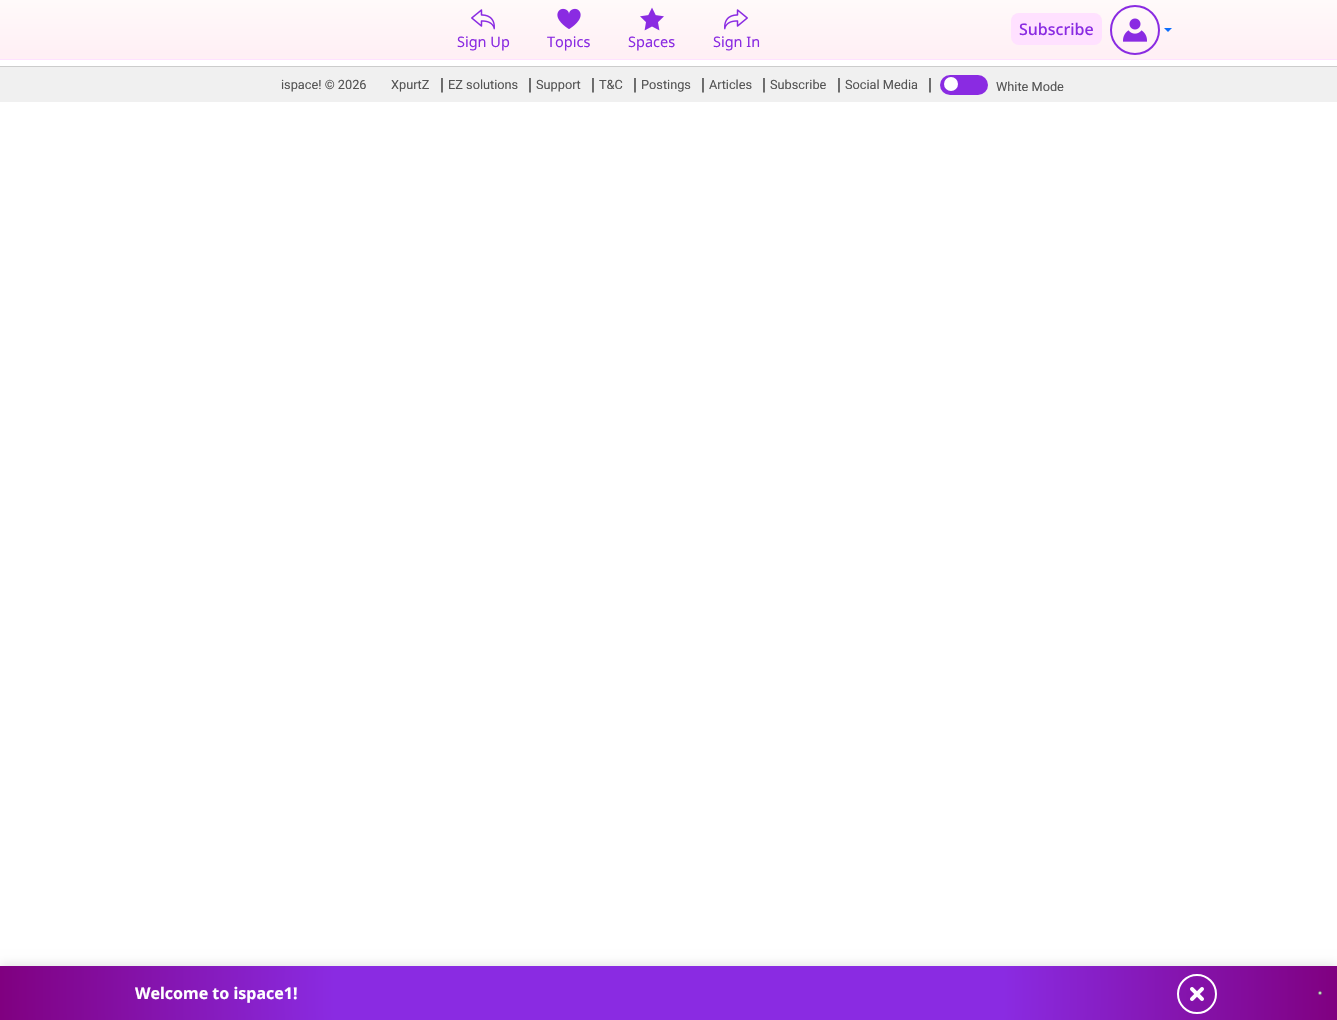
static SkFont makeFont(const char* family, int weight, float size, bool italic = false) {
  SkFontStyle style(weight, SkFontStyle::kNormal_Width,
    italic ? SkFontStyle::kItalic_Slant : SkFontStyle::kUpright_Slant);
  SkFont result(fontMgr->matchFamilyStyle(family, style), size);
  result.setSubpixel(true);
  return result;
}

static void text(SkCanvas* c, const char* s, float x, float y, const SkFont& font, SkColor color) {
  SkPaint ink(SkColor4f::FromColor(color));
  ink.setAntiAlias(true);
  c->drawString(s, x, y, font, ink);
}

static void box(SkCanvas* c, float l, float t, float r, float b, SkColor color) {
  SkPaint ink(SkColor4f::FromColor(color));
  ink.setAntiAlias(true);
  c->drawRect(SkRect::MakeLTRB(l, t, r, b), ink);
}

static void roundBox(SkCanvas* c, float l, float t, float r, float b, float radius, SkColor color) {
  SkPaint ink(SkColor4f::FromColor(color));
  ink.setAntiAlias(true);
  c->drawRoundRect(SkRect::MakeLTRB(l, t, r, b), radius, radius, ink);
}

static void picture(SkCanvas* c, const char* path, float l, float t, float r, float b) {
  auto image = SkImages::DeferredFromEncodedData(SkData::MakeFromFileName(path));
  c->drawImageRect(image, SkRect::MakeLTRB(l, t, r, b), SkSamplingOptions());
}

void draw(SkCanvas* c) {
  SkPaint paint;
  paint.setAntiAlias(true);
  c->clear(0xffffffff);
  {
    const SkColor colors[] = {0xfffffafa, 0xfffff0f5};
    const float stops[] = {0, 0.9f};
    const SkPoint ends[] = {{669, 0}, {669, 59}};
    paint.setShader(SkGradientShader::MakeLinear(ends, colors, stops, 2, SkTileMode::kClamp));
    paint.setAlpha(255);
  }
  c->drawRect(SkRect::MakeLTRB(0, 0, 1337, 59), paint);
  box(c, 0, 59, 1337, 60, 0xffffe1ff);
  roundBox(c, 1011, 13, 1102, 45, 8, 0xffffe1ff);
  SkFont face1 = makeFont("Noto Sans", 500, 16);
  text(c, "Subscribe", 1019, 35, face1, 0xff8a2be2);
  paint.setStyle(SkPaint::kStroke_Style);
  paint.setStrokeWidth(2);
  paint.setShader(nullptr);
  paint.setColor(0xff8a2be2);
  c->drawCircle(1135, 30, 24, paint);
  picture(c, "img_01.png", 1123, 18, 1147, 42);
  paint.setStyle(SkPaint::kFill_Style);
  paint.setColor(0xff0d6efd);
  c->drawPath(SkPathBuilder().moveTo(1164, 28).lineTo(1172, 28).lineTo(1168, 32).close().detach(), paint);
  picture(c, "img_02.png", 471, 9, 495, 30);
  SkFont face2 = makeFont("Noto Sans", 400, 14.5f);
  text(c, "Sign Up", 457, 47, face2, 0xff8a2be2);
  picture(c, "img_03.png", 557, 8, 581, 29);
  text(c, "Topics", 547, 47, face2, 0xff8a2be2);
  picture(c, "img_04.png", 640, 7, 664, 31);
  text(c, "Spaces", 628, 47, face2, 0xff8a2be2);
  picture(c, "img_05.png", 724, 9, 748, 30);
  text(c, "Sign In", 713, 47, face2, 0xff8a2be2);
  box(c, 0, 67, 1337, 102, 0xfff0f0f0);
  box(c, 0, 66, 1337, 67, 0xffcccccc);
  SkFont face3 = makeFont("Roboto", 400, 12.75f);
  text(c, "ispace! © 2026", 281, 89, face3, 0xff555555);
  text(c, "XpurtZ", 391, 89, face3, 0xff555555);
  text(c, "|", 438, 89, face2, 0xff1a1a1a);
  text(c, "EZ solutions", 448, 89, face3, 0xff555555);
  text(c, "|", 526, 89, face2, 0xff1a1a1a);
  text(c, "Support", 536, 89, face3, 0xff555555);
  text(c, "|", 589, 89, face2, 0xff1a1a1a);
  text(c, "T&C", 599, 89, face3, 0xff555555);
  text(c, "|", 631, 89, face2, 0xff1a1a1a);
  text(c, "Postings", 641, 89, face3, 0xff555555);
  text(c, "|", 699, 89, face2, 0xff1a1a1a);
  text(c, "Articles", 709, 89, face3, 0xff555555);
  text(c, "|", 760, 89, face2, 0xff1a1a1a);
  text(c, "Subscribe", 770, 89, face3, 0xff555555);
  text(c, "|", 835, 89, face2, 0xff1a1a1a);
  text(c, "Social Media", 845, 89, face3, 0xff555555);
  text(c, "|", 926, 89, face2, 0xff1a1a1a);
  roundBox(c, 940, 75, 988, 95, 10, 0xff8a2be2);
  paint.setColor(0xffffffff);
  c->drawCircle(951, 84, 7, paint);
  text(c, "White Mode", 996, 91, face3, 0xff555555);
  paint.setColor(0x1a000000);
  paint.setMaskFilter(SkMaskFilter::MakeBlur(kNormal_SkBlurStyle, 5));
  c->drawRect(SkRect::MakeLTRB(0, 964, 1337, 1018), paint);
  paint.setMaskFilter(nullptr);
  {
    const SkColor colors[] = {0xff8a2be2, 0xff800080};
    const float stops[] = {0.5f, 1};
    paint.setShader(SkGradientShader::MakeRadial({669, 993}, 669, colors, stops, 2, SkTileMode::kClamp));
    paint.setAlpha(255);
  }
  c->drawRect(SkRect::MakeLTRB(0, 966, 1337, 1020), paint);
  SkFont face4 = makeFont("Noto Sans", 700, 16);
  text(c, "Welcome to ispace1!", 135, 999, face4, 0xffffffff);
  paint.setShader(nullptr);
  paint.setColor(0xffefefef);
  c->drawCircle(1320, 993, 1.5f, paint);
  paint.setStyle(SkPaint::kStroke_Style);
  paint.setStrokeWidth(1);
  paint.setColor(0xff767676);
  c->drawCircle(1320, 993, 1.5f, paint);
  paint.setStrokeWidth(2);
  paint.setColor(0xffffffff);
  c->drawCircle(1197, 994, 19, paint);
  picture(c, "img_06.png", 1190, 987, 1204, 1001);
}
